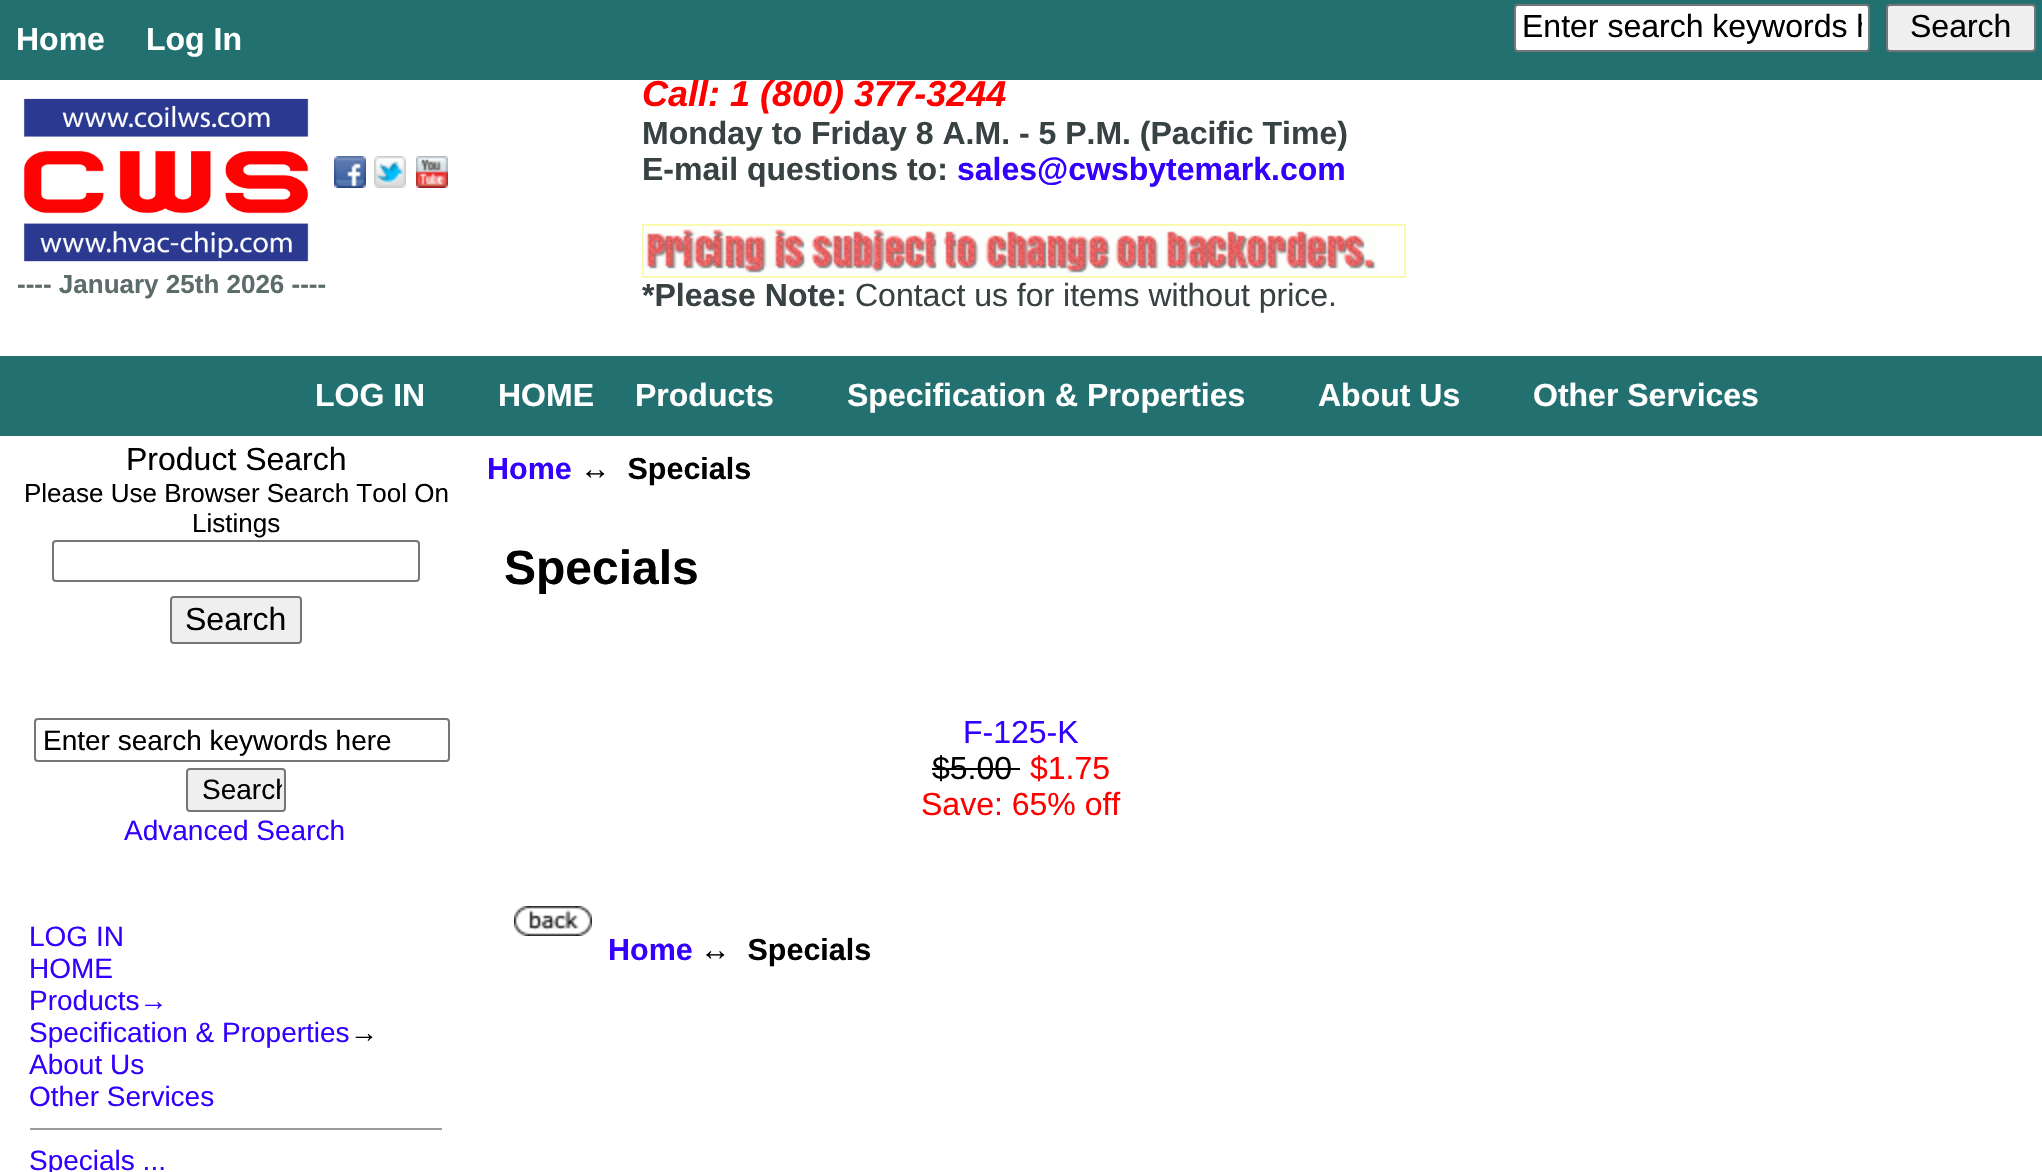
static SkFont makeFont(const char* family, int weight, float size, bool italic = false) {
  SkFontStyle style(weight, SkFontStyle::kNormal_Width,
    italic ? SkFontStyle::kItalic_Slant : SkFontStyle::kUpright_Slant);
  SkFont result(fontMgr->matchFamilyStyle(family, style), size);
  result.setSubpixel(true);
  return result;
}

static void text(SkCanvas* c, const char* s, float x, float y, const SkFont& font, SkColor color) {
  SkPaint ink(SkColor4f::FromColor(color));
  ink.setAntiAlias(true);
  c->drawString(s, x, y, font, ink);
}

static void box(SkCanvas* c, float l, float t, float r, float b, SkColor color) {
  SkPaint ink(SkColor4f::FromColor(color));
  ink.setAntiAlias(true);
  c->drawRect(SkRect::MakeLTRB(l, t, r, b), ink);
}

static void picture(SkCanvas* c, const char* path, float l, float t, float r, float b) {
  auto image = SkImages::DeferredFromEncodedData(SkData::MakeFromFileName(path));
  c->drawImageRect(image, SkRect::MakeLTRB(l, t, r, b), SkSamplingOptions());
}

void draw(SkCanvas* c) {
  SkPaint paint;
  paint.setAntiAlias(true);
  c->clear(0xffffffff);
  SkFont face1 = makeFont("Liberation Sans", 700, 36, true);
  text(c, "Call: 1 (800) 377-3244", 642, 106, face1, 0xffff0000);
  box(c, 0, 0, 2042, 80, 0xff227070);
  SkFont face2 = makeFont("Liberation Sans", 700, 32);
  text(c, "Home", 16, 50, face2, 0xffffffff);
  text(c, "Log In", 146, 50, face2, 0xffffffff);
  paint.setColor(0xffffffff);
  c->drawRoundRect(SkRect::MakeLTRB(1515, 5, 1869, 51), 3, 3, paint);
  paint.setStyle(SkPaint::kStroke_Style);
  paint.setStrokeWidth(2);
  paint.setColor(0xff767676);
  c->drawRoundRect(SkRect::MakeLTRB(1515, 5, 1869, 51), 3, 3, paint);
  c->save();
  c->clipRect(SkRect::MakeLTRB(1522, 10, 1862, 46));
  SkFont face3 = makeFont("Liberation Sans", 400, 32);
  text(c, "Enter search keywords h", 1522, 37, face3, 0xff000000);
  c->restore();
  paint.setStyle(SkPaint::kFill_Style);
  paint.setColor(0xffefefef);
  c->drawRoundRect(SkRect::MakeLTRB(1887, 5, 2035, 51), 3, 3, paint);
  paint.setStyle(SkPaint::kStroke_Style);
  paint.setColor(0xff767676);
  c->drawRoundRect(SkRect::MakeLTRB(1887, 5, 2035, 51), 3, 3, paint);
  text(c, "Search", 1910, 37, face3, 0xff000000);
  picture(c, "img_01.png", 334, 156, 366, 188);
  picture(c, "img_02.png", 374, 156, 406, 188);
  picture(c, "img_03.png", 416, 156, 448, 188);
  text(c, "Monday to Friday 8 A.M. - 5 P.M. (Pacific Time)", 642, 144, face2, 0xff384242);
  text(c, "E-mail questions to:", 642, 180, face2, 0xff384242);
  text(c, "sales@cwsbytemark.com", 957, 180, face2, 0xff3300ff);
  paint.setColor(0xfffaf9b0);
  c->drawRect(SkRect::MakeLTRB(643, 225, 1405, 277), paint);
  picture(c, "img_04.png", 645, 229, 1377, 273);
  text(c, "*Please Note:", 642, 306, face2, 0xff384242);
  text(c, "Contact us for items without price.", 855, 306, face3, 0xff384242);
  picture(c, "img_05.png", 23, 98, 309, 262);
  SkFont face4 = makeFont("Liberation Sans", 700, 26);
  text(c, "---- January 25th 2026 ----", 17, 293, face4, 0xff5b6c6a);
  box(c, 0, 356, 2042, 436, 0xff227070);
  text(c, "LOG IN", 315, 406, face2, 0xffffffff);
  text(c, "HOME", 498, 406, face2, 0xffffffff);
  text(c, "Products", 635, 406, face2, 0xffffffff);
  text(c, "Specification & Properties", 847, 406, face2, 0xffffffff);
  text(c, "About Us", 1318, 406, face2, 0xffffffff);
  text(c, "Other Services", 1533, 406, face2, 0xffffffff);
  text(c, "Product Search", 126, 470, face3, 0xff000000);
  SkFont face5 = makeFont("Liberation Sans", 400, 26);
  text(c, "Please Use Browser Search Tool On", 24, 502, face5, 0xff000000);
  text(c, "Listings", 192, 532, face5, 0xff000000);
  paint.setColor(0xff767676);
  c->drawRoundRect(SkRect::MakeLTRB(53, 541, 419, 581), 3, 3, paint);
  paint.setStyle(SkPaint::kFill_Style);
  paint.setColor(0xffefefef);
  c->drawRoundRect(SkRect::MakeLTRB(171, 597, 301, 643), 3, 3, paint);
  paint.setStyle(SkPaint::kStroke_Style);
  paint.setColor(0xff767676);
  c->drawRoundRect(SkRect::MakeLTRB(171, 597, 301, 643), 3, 3, paint);
  text(c, "Search", 185, 630, face3, 0xff000000);
  c->drawRoundRect(SkRect::MakeLTRB(35, 719, 449, 761), 3, 3, paint);
  SkFont face6 = makeFont("Liberation Sans", 400, 28);
  text(c, "Enter search keywords here", 43, 750, face6, 0xff000000);
  paint.setStyle(SkPaint::kFill_Style);
  paint.setColor(0xffefefef);
  c->drawRoundRect(SkRect::MakeLTRB(187, 769, 285, 811), 3, 3, paint);
  paint.setStyle(SkPaint::kStroke_Style);
  paint.setColor(0xff767676);
  c->drawRoundRect(SkRect::MakeLTRB(187, 769, 285, 811), 3, 3, paint);
  c->save();
  c->clipRect(SkRect::MakeLTRB(190, 772, 282, 808));
  text(c, "Search", 202, 799, face6, 0xff000000);
  c->restore();
  text(c, "Advanced Search", 124, 840, face6, 0xff3300ff);
  text(c, "LOG IN", 29, 946, face6, 0xff3300ff);
  text(c, "HOME", 29, 978, face6, 0xff3300ff);
  text(c, "Products→", 29, 1010, face6, 0xff3300ff);
  text(c, "Specification & Properties", 29, 1042, face6, 0xff3300ff);
  text(c, "→", 350, 1042, face6, 0xff000000);
  text(c, "About Us", 29, 1074, face6, 0xff3300ff);
  text(c, "Other Services", 29, 1106, face6, 0xff3300ff);
  box(c, 30, 1128, 442, 1130, 0xff9a9a9a);
  text(c, "Specials ...", 29, 1170, face6, 0xff3300ff);
  SkFont face7 = makeFont("Liberation Sans", 700, 30.5f);
  text(c, "Home", 487, 479, face7, 0xff3300ff);
  text(c, "↔  Specials", 580, 479, face7, 0xff000000);
  SkFont face8 = makeFont("Liberation Sans", 700, 48);
  text(c, "Specials", 504, 584, face8, 0xff000000);
  text(c, "F-125-K", 963, 743, face3, 0xff3300ff);
  text(c, "$5.00", 932, 779, face3, 0xff000000);
  box(c, 932, 768, 1020, 770, 0xff000000);
  text(c, "$1.75", 1030, 779, face3, 0xffff0000);
  text(c, "Save: 65% off", 921, 815, face3, 0xffff0000);
  picture(c, "img_06.png", 514, 906, 592, 936);
  text(c, "Home", 608, 960, face7, 0xff3300ff);
  text(c, "↔  Specials", 700, 960, face7, 0xff000000);
}
